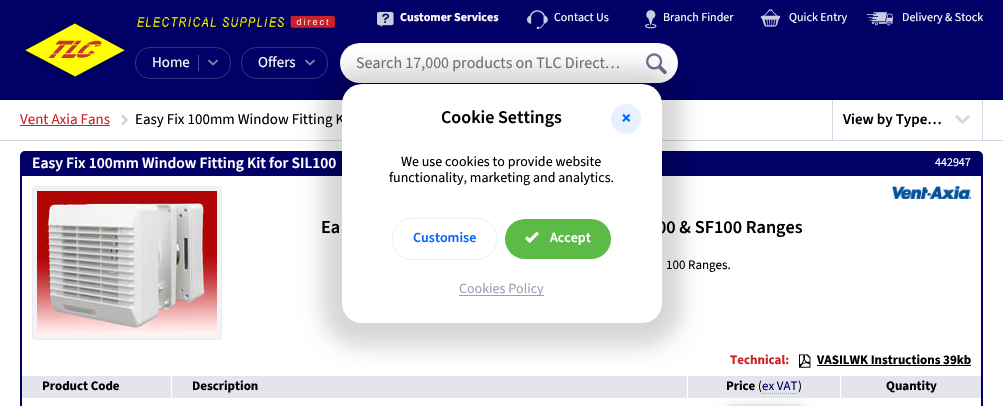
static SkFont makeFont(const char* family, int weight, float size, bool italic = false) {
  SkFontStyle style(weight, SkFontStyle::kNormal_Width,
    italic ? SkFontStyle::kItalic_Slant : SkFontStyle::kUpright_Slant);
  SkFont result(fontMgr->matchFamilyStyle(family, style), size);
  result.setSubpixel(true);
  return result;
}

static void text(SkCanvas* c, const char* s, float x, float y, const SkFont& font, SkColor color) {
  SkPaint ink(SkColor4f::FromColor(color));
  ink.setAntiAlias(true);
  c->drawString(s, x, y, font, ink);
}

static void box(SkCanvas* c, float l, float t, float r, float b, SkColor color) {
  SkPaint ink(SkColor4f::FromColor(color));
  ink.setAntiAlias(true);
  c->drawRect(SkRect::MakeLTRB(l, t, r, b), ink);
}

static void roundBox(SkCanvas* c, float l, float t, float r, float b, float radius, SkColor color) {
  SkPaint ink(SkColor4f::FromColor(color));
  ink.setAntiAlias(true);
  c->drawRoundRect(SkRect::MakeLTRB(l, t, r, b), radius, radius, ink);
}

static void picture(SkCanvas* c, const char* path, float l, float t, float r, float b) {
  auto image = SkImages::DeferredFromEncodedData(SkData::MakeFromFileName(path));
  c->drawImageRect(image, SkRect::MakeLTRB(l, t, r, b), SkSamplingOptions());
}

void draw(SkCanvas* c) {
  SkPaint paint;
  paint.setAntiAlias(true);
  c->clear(0xffffffff);
  box(c, 0, 0, 1003, 100, 0xff000066);
  picture(c, "img_01.png", 24, 21, 126, 79);
  picture(c, "img_02.png", 137, 16, 335, 28);
  picture(c, "img_03.png", 377, 11, 394, 27);
  SkFont face1 = makeFont("Source Sans 3", 700, 12);
  text(c, "Customer Services", 400, 21, face1, 0xffffffff);
  picture(c, "img_04.png", 527, 10, 548, 30);
  SkFont face2 = makeFont("Source Sans 3", 400, 12);
  text(c, "Contact Us", 554, 21, face2, 0xffffffff);
  picture(c, "img_05.png", 645, 10, 657, 29);
  text(c, "Branch Finder", 663, 21, face2, 0xffffffff);
  picture(c, "img_06.png", 760, 9, 781, 27);
  text(c, "Quick Entry", 789, 21, face2, 0xffffffff);
  picture(c, "img_07.png", 866, 12, 894, 26);
  text(c, "Delivery & Stock", 902, 21, face2, 0xffffffff);
  paint.setStyle(SkPaint::kStroke_Style);
  paint.setStrokeWidth(1);
  paint.setColor(0xff333385);
  c->drawRoundRect(SkRect::MakeLTRB(135.5f, 47.5f, 230.5f, 78.5f), 14.5f, 14.5f, paint);
  SkFont face3 = makeFont("Source Sans 3", 400, 15);
  text(c, "Home", 152, 67, face3, 0xffffffff);
  box(c, 198, 55, 199, 71, 0xff4d4d94);
  picture(c, "img_08.png", 208, 59, 218, 66);
  c->drawRoundRect(SkRect::MakeLTRB(241.5f, 47.5f, 327.5f, 78.5f), 14.5f, 14.5f, paint);
  text(c, "Offers", 258, 67, face3, 0xffffffff);
  picture(c, "img_08.png", 305, 59, 315, 66);
  roundBox(c, 340, 43, 678, 83, 20, 0xffffffff);
  SkFont face4 = makeFont("Source Sans 3", 400, 16);
  text(c, "Search 17,000 products on TLC Direct…", 356, 68, face4, 0xff757575);
  picture(c, "img_09.png", 646, 53, 667, 75);
  box(c, 0, 140, 1003, 141, 0xffd5d5e2);
  paint.setStyle(SkPaint::kFill_Style);
  paint.setColor(0xcc000000);
  paint.setMaskFilter(SkMaskFilter::MakeBlur(kNormal_SkBlurStyle, 10));
  c->drawRoundRect(SkRect::MakeLTRB(728, 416, 801, 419), 1.5f, 1.5f, paint);
  paint.setMaskFilter(nullptr);
  paint.setStyle(SkPaint::kStroke_Style);
  paint.setStrokeWidth(2);
  paint.setColor(0xff000066);
  c->drawRoundRect(SkRect::MakeLTRB(21, 152, 982, 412), 4, 4, paint);
  box(c, 22, 153, 981, 176, 0xff000066);
  paint.setStyle(SkPaint::kFill_Style);
  paint.setColor(0x0a000000);
  paint.setMaskFilter(SkMaskFilter::MakeBlur(kNormal_SkBlurStyle, 10));
  c->drawRoundRect(SkRect::MakeLTRB(322, 64, 682, 343), 40, 40, paint);
  paint.setMaskFilter(nullptr);
  box(c, 22, 376, 981, 398, 0xffe4e4ec);
  box(c, 687, 376, 688, 398, 0xffffffff);
  paint.setColor(0x1f000000);
  paint.setMaskFilter(SkMaskFilter::MakeBlur(kNormal_SkBlurStyle, 10));
  c->drawRoundRect(SkRect::MakeLTRB(322, 69, 682, 348), 40, 40, paint);
  paint.setMaskFilter(nullptr);
  text(c, "Easy Fix 100mm Window Fitting K", 135, 124, face3, 0xff000000);
  SkFont face5 = makeFont("Source Sans 3", 600, 18.25f);
  text(c, "00 & SF100 Ranges", 657, 233, face5, 0xff000000);
  roundBox(c, 342, 84, 662, 323, 20, 0xffffffff);
  SkFont face6 = makeFont("Source Sans 3", 600, 18);
  text(c, "Cookie Settings", 441, 123, face6, 0xff000000);
  paint.setColor(0xffe6f0ff);
  c->drawCircle(626, 119, 15, paint);
  picture(c, "img_10.png", 622, 114, 631, 122);
  SkFont face7 = makeFont("Source Sans 3", 400, 14);
  text(c, "We use cookies to provide website", 401, 166, face7, 0xff000000);
  text(c, "functionality, marketing and analytics.", 389, 182, face7, 0xff000000);
  paint.setStyle(SkPaint::kStroke_Style);
  paint.setStrokeWidth(1);
  c->drawRoundRect(SkRect::MakeLTRB(392.5f, 218.5f, 496.5f, 259.5f), 19.5f, 19.5f, paint);
  SkFont face8 = makeFont("Source Sans 3", 600, 14);
  text(c, "Customise", 413, 242, face8, 0xff0066ff);
  roundBox(c, 505, 219, 611, 259, 20, 0xff5cba47);
  picture(c, "img_11.png", 525, 231, 539, 244);
  text(c, "Accept", 550, 242, face8, 0xffffffff);
  box(c, 459, 295, 544, 296, 0xff9d9db8);
  text(c, "Cookies Policy", 459, 293, face7, 0xff9d9db8);
  text(c, "Vent Axia Fans", 20, 124, face3, 0xffcc2127);
  box(c, 20, 125, 110, 126, 0xffcc2127);
  picture(c, "img_12.png", 121, 115, 128, 125);
  box(c, 982, 100, 983, 140, 0xffd5d5e2);
  box(c, 832, 100, 833, 140, 0xffd5d5e2);
  SkFont face9 = makeFont("Source Sans 3", 600, 15);
  text(c, "View by Type…", 843, 124, face9, 0xff000000);
  picture(c, "img_13.png", 955, 115, 970, 124);
  SkFont face10 = makeFont("Source Sans 3", 600, 15.6f);
  text(c, "Easy Fix 100mm Window Fitting Kit for SIL100", 32, 168, face10, 0xffffffff);
  text(c, "442947", 935, 166, face2, 0xffffffff);
  paint.setStyle(SkPaint::kFill_Style);
  paint.setColor(0xfff3f3f7);
  c->drawRoundRect(SkRect::MakeLTRB(32.5f, 186.5f, 221.5f, 339.5f), 2.5f, 2.5f, paint);
  paint.setStyle(SkPaint::kStroke_Style);
  paint.setColor(0xffeaeaf1);
  c->drawRoundRect(SkRect::MakeLTRB(32.5f, 186.5f, 221.5f, 339.5f), 2.5f, 2.5f, paint);
  picture(c, "img_14.png", 37, 191, 217, 335);
  picture(c, "img_15.png", 892, 186, 971, 199);
  text(c, "Ea", 321, 233, face5, 0xff000000);
  SkFont face11 = makeFont("Source Sans 3", 400, 13);
  text(c, "100 Ranges.", 666, 269, face11, 0xff000000);
  SkFont face12 = makeFont("Source Sans 3", 700, 13);
  text(c, "Technical:", 730, 364, face12, 0xffcc2127);
  picture(c, "img_16.png", 799, 354, 811, 368);
  text(c, "VASILWK Instructions 39kb", 817, 364, face12, 0xff000000);
  box(c, 817, 365, 971, 366, 0xff000000);
  box(c, 171, 376, 172, 398, 0xffffffff);
  text(c, "Product Code", 42, 390, face12, 0xff000000);
  text(c, "Description", 192, 390, face12, 0xff000000);
  box(c, 840, 376, 841, 398, 0xffffffff);
  text(c, "Price", 726, 390, face12, 0xff000000);
  text(c, "(", 758, 390, face11, 0xff000000);
  paint.setColor(0xff9d9db8);
  paint.setPathEffect(SkDashPathEffect::Make({{1, 1}}, 0));
  c->drawPath(SkPathBuilder().moveTo(762, 393.5f).lineTo(798, 393.5f).detach(), paint);
  paint.setPathEffect(nullptr);
  text(c, "ex VAT", 762, 390, face11, 0xff000066);
  text(c, ")", 798, 390, face11, 0xff000000);
  text(c, "Quantity", 886, 390, face12, 0xff000000);
  paint.setStyle(SkPaint::kFill_Style);
  paint.setColor(0x4d000000);
  paint.setMaskFilter(SkMaskFilter::MakeBlur(kNormal_SkBlurStyle, 2));
  c->drawRect(SkRect::MakeLTRB(728, 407, 801, 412), paint);
  paint.setMaskFilter(nullptr);
}
